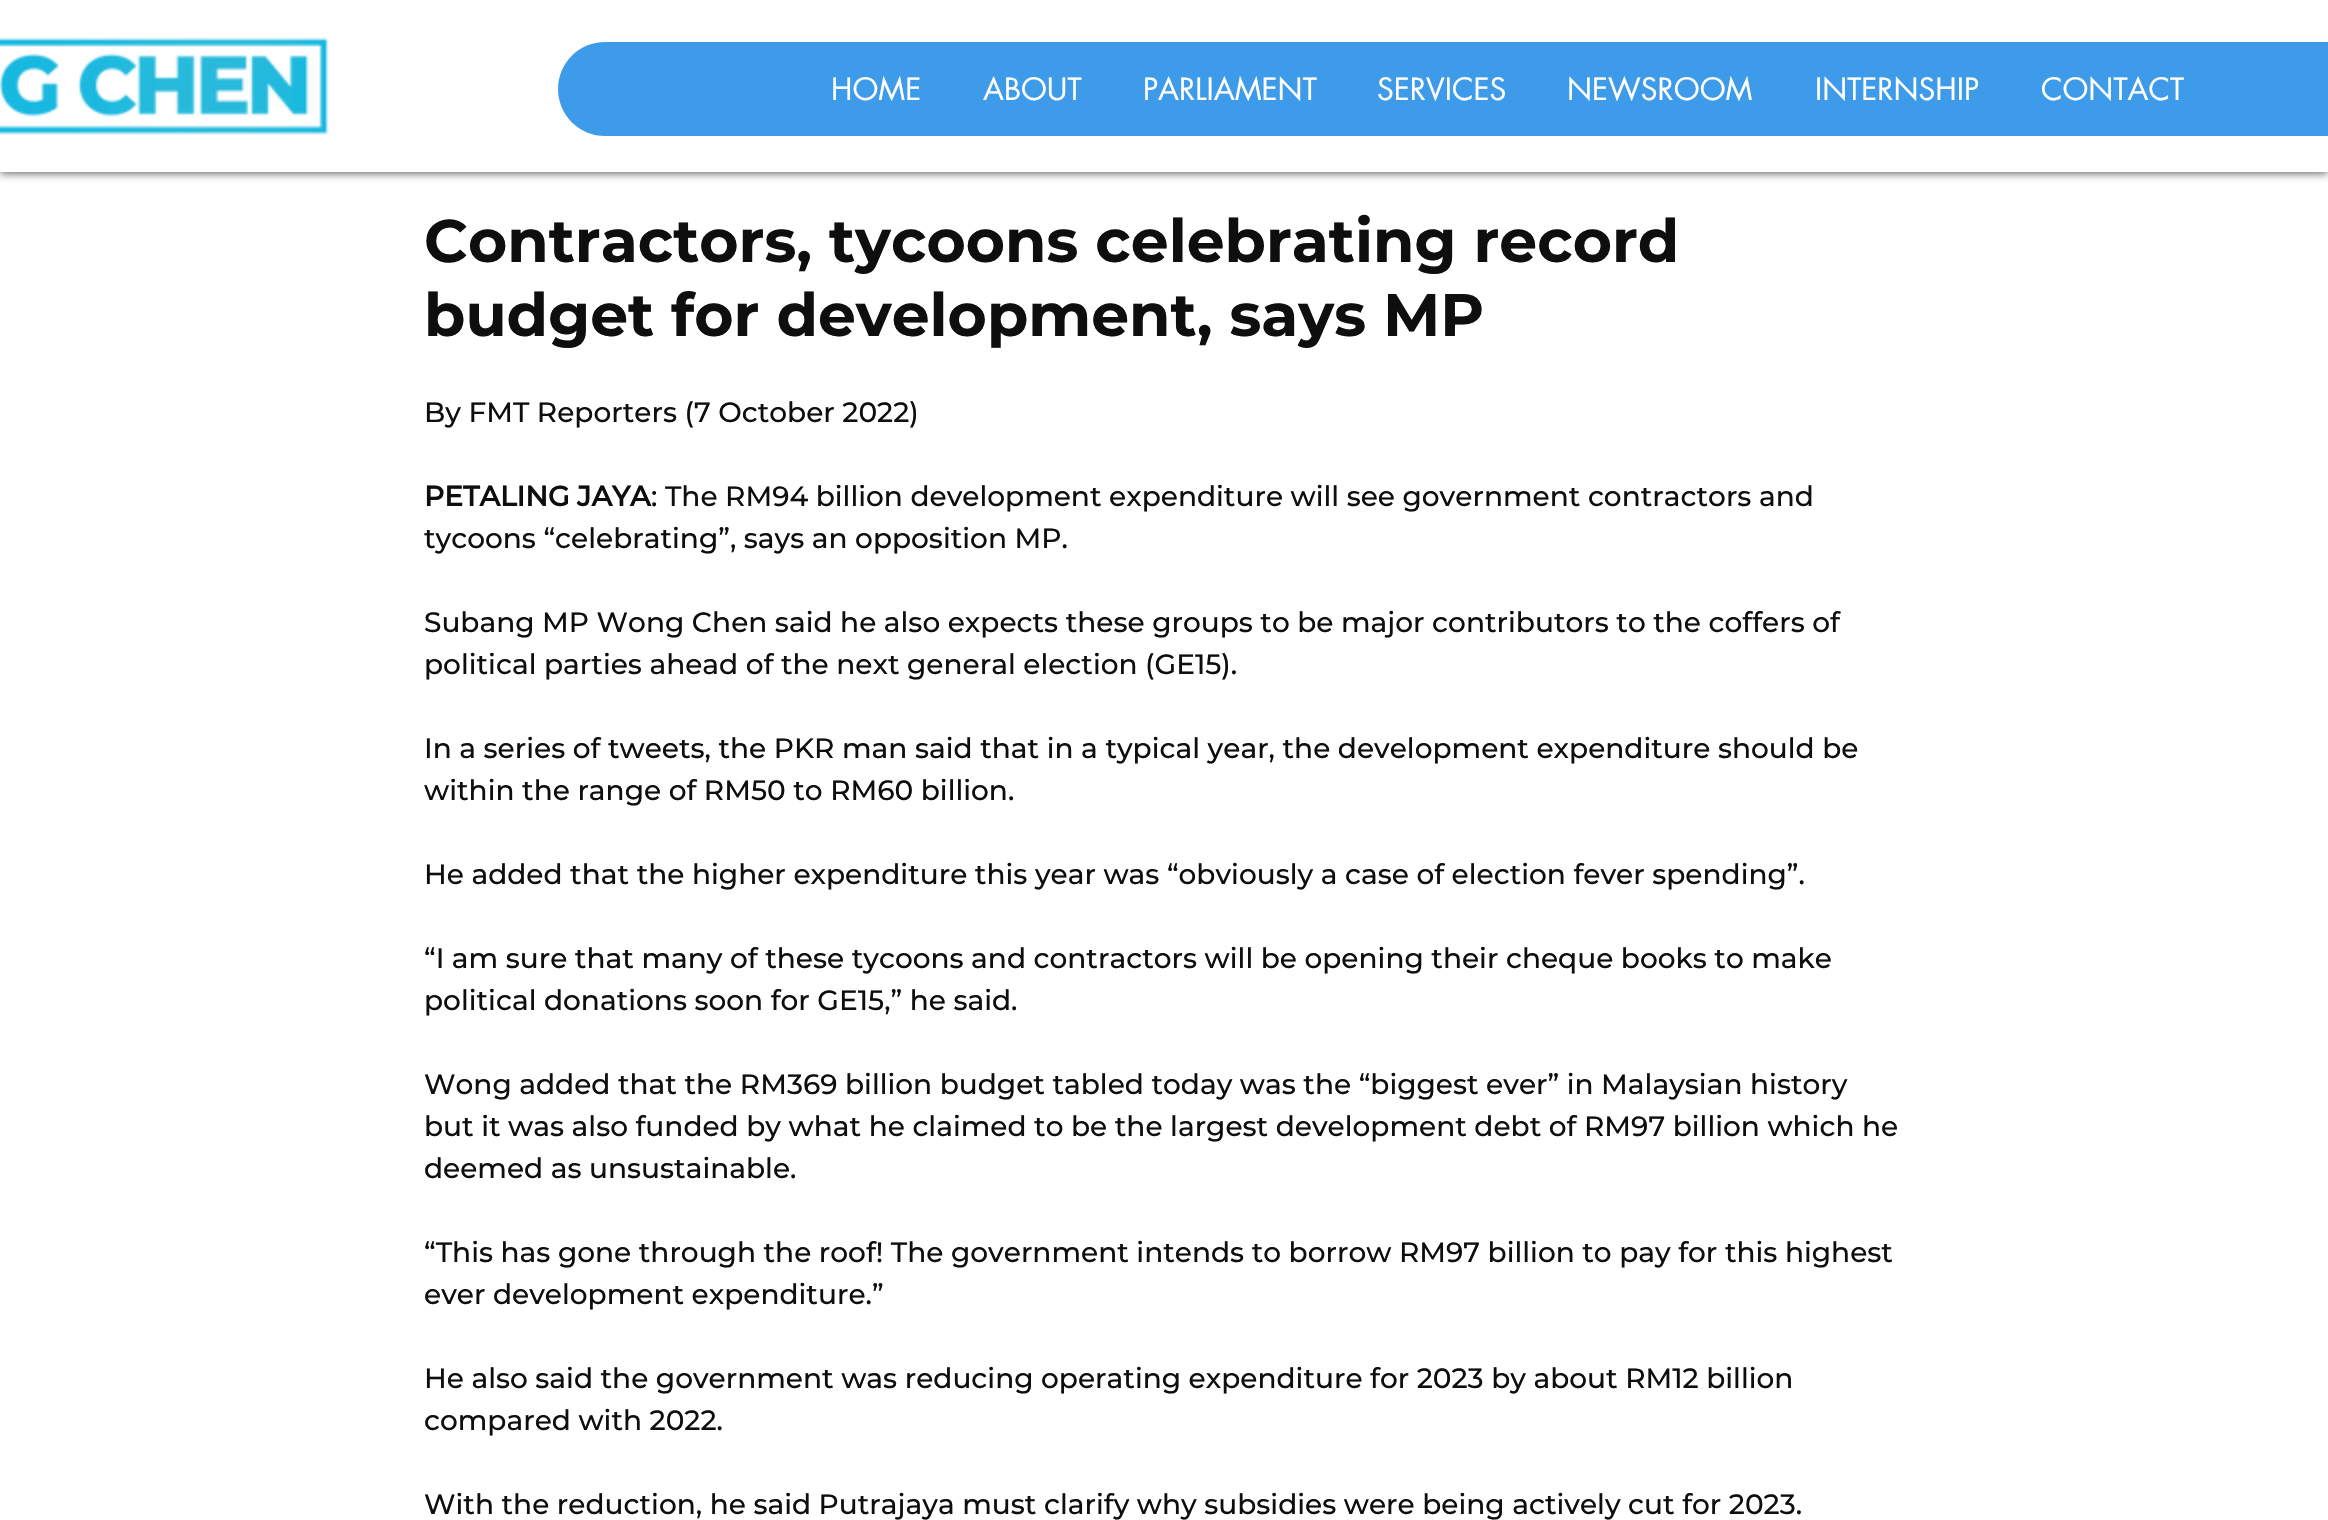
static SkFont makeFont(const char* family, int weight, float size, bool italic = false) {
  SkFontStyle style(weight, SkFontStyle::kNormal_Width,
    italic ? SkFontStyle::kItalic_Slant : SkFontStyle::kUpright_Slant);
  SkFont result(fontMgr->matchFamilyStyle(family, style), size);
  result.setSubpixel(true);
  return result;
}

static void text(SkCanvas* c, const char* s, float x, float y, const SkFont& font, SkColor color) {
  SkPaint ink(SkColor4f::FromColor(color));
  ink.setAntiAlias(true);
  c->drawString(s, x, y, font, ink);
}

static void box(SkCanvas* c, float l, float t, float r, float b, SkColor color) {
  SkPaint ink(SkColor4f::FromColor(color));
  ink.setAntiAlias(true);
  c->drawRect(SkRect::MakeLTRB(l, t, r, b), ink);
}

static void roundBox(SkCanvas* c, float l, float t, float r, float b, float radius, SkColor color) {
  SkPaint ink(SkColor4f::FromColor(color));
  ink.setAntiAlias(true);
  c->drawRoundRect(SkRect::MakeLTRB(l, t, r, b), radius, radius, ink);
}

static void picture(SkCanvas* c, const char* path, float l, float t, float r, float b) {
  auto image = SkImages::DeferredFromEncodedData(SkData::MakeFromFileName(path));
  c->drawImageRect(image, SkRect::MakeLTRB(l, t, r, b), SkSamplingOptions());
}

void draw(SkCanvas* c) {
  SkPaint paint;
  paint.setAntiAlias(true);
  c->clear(0xffffffff);
  paint.setColor(0xbf424242);
  paint.setMaskFilter(SkMaskFilter::MakeBlur(kNormal_SkBlurStyle, 4));
  c->drawRect(SkRect::MakeLTRB(0, 2, 2328, 174), paint);
  paint.setMaskFilter(nullptr);
  box(c, 0, 0, 2328, 172, 0xffffffff);
  picture(c, "img_01.png", 0, 37, 329, 135);
  roundBox(c, 558, 42, 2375, 136, 47, 0xff3d9be9);
  SkFont face1 = makeFont("futura", 400, 30);
  text(c, "HOME", 831, 100, face1, 0xffffffff);
  text(c, "ABOUT", 983, 100, face1, 0xffffffff);
  text(c, "PARLIAMENT", 1143, 100, face1, 0xffffffff);
  text(c, "SERVICES", 1377, 100, face1, 0xffffffff);
  text(c, "NEWSROOM", 1567, 100, face1, 0xffffffff);
  text(c, "INTERNSHIP", 1815, 100, face1, 0xffffffff);
  text(c, "CONTACT", 2041, 100, face1, 0xffffffff);
  SkFont face2 = makeFont("Montserrat", 700, 60);
  text(c, "Contractors, tycoons celebrating record", 424, 262, face2, 0xff0f0e0e);
  text(c, "budget for development, says MP", 424, 336, face2, 0xff0f0e0e);
  SkFont face3 = makeFont("Montserrat", 500, 28);
  text(c, "By FMT Reporters (7 October 2022)", 424, 422, face3, 0xff0f0e0e);
  SkFont face4 = makeFont("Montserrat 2", 700, 28);
  text(c, "PETALING JAYA", 424, 506, face4, 0xff0f0e0e);
  text(c, ": The RM94 billion development expenditure will see government contractors and", 651, 506, face3, 0xff0f0e0e);
  text(c, "tycoons “celebrating”, says an opposition MP.", 424, 548, face3, 0xff0f0e0e);
  text(c, "Subang MP Wong Chen said he also expects these groups to be major contributors to the coffers of", 424, 632, face3, 0xff0f0e0e);
  text(c, "political parties ahead of the next general election (GE15).", 424, 674, face3, 0xff0f0e0e);
  text(c, "In a series of tweets, the PKR man said that in a typical year, the development expenditure should be", 424, 758, face3, 0xff0f0e0e);
  text(c, "within the range of RM50 to RM60 billion.", 424, 800, face3, 0xff0f0e0e);
  text(c, "He added that the higher expenditure this year was “obviously a case of election fever spending”.", 424, 884, face3, 0xff0f0e0e);
  text(c, "“I am sure that many of these tycoons and contractors will be opening their cheque books to make", 424, 968, face3, 0xff0f0e0e);
  text(c, "political donations soon for GE15,” he said.", 424, 1010, face3, 0xff0f0e0e);
  text(c, "Wong added that the RM369 billion budget tabled today was the “biggest ever” in Malaysian history", 424, 1094, face3, 0xff0f0e0e);
  text(c, "but it was also funded by what he claimed to be the largest development debt of RM97 billion which he", 424, 1136, face3, 0xff0f0e0e);
  text(c, "deemed as unsustainable.", 424, 1178, face3, 0xff0f0e0e);
  text(c, "“This has gone through the roof! The government intends to borrow RM97 billion to pay for this highest", 424, 1262, face3, 0xff0f0e0e);
  text(c, "ever development expenditure.”", 424, 1304, face3, 0xff0f0e0e);
  text(c, "He also said the government was reducing operating expenditure for 2023 by about RM12 billion", 424, 1388, face3, 0xff0f0e0e);
  text(c, "compared with 2022.", 424, 1430, face3, 0xff0f0e0e);
  text(c, "With the reduction, he said Putrajaya must clarify why subsidies were being actively cut for 2023.", 424, 1514, face3, 0xff0f0e0e);
}
